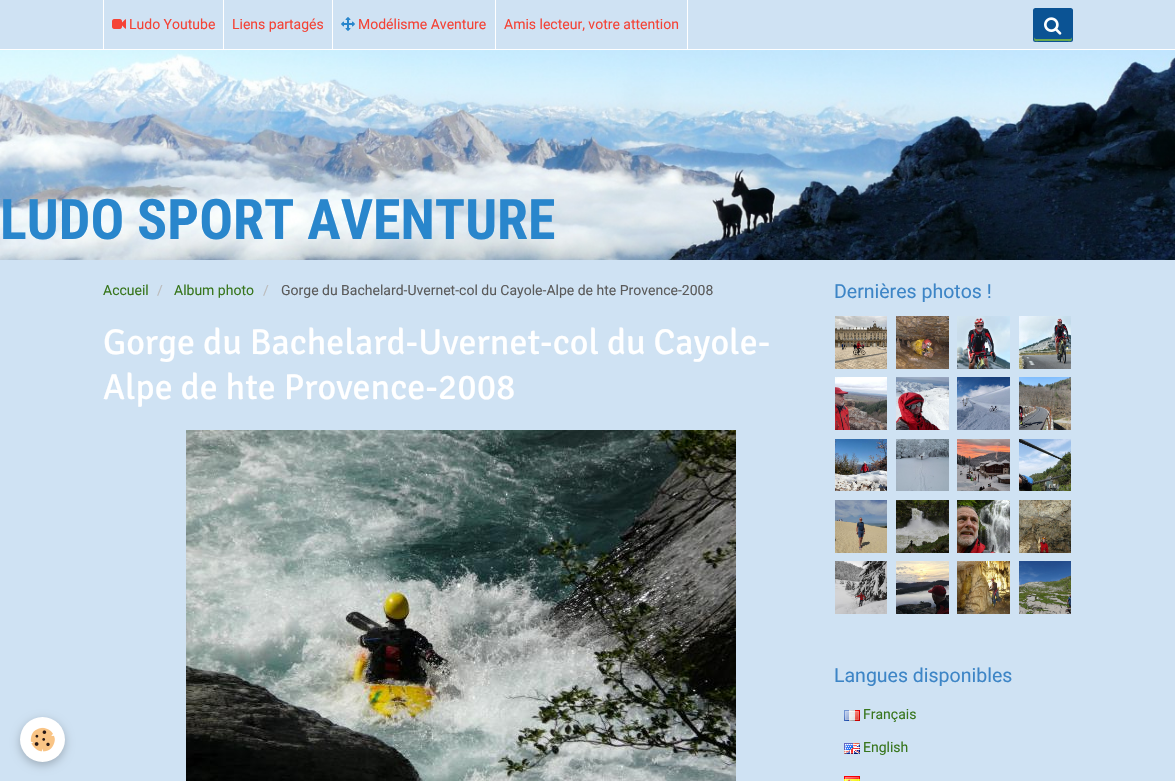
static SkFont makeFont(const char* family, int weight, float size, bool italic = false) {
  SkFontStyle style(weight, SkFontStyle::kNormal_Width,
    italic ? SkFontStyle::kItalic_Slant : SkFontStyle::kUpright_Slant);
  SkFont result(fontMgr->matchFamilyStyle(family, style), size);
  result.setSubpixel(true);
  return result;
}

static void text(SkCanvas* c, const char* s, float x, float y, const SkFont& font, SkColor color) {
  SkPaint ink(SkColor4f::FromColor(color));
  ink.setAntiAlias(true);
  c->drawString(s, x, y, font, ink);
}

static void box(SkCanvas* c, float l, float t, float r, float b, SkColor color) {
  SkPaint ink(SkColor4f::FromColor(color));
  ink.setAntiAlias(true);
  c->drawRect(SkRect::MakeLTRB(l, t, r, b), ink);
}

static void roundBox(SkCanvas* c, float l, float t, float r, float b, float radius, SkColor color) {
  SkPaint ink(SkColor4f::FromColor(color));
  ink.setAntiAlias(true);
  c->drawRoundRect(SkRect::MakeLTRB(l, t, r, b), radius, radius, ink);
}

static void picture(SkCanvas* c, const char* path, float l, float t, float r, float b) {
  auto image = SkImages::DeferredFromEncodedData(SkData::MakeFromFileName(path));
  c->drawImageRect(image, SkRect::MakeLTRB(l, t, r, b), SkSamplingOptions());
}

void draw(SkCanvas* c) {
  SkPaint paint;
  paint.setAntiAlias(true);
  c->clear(0xffcfe2f3);
  box(c, 0, 49, 1175, 50, 0xffffffff);
  box(c, 223, 0, 224, 49, 0xffffffff);
  box(c, 103, 0, 104, 49, 0xffffffff);
  picture(c, "img_01.png", 112, 19, 126, 29);
  SkFont face1 = makeFont("Roboto", 400, 14);
  text(c, "Ludo Youtube", 129, 29, face1, 0xfff44336);
  box(c, 332, 0, 333, 49, 0xffffffff);
  text(c, "Liens partagés", 232, 29, face1, 0xfff44336);
  box(c, 495, 0, 496, 49, 0xffffffff);
  picture(c, "img_02.png", 341, 17, 355, 31);
  text(c, "Modélisme Aventure", 358, 29, face1, 0xfff44336);
  box(c, 687, 0, 688, 49, 0xffffffff);
  text(c, "Amis lecteur, votre attention", 504, 29, face1, 0xfff44336);
  roundBox(c, 1033, 8, 1073, 42, 2.5f, 0xff0b5394);
  paint.setColor(0xff6aa84f);
  c->drawPath(SkPathBuilder().moveTo(1034, 37).cubicTo(1034, 42.5f, 1035, 41, 1041.5f, 41).lineTo(1064.5f, 41).cubicTo(1071, 41, 1072, 42.5f, 1072, 37).cubicTo(1072, 38, 1071, 39, 1070, 39).lineTo(1036, 39).cubicTo(1035, 39, 1034, 38, 1034, 37).close().detach(), paint);
  picture(c, "img_03.png", 1044, 17, 1062, 35);
  picture(c, "img_04.png", 0, 50, 1175, 260);
  SkFont face2 = makeFont("Roboto Condensed", 700, 56);
  text(c, "LUDO SPORT AVENTURE", 0, 239, face2, 0xff2986cc);
  paint.setColor(0x3d000000);
  paint.setMaskFilter(SkMaskFilter::MakeBlur(kNormal_SkBlurStyle, 5));
  c->drawRoundRect(SkRect::MakeLTRB(20, 720, 65, 765), 22.5f, 22.5f, paint);
  paint.setMaskFilter(nullptr);
  paint.setColor(0xffffffff);
  c->drawCircle(42.5f, 739.5f, 22.5f, paint);
  picture(c, "img_05.png", 30, 727, 55, 752);
  text(c, "Accueil", 103, 295, face1, 0xff38761d);
  text(c, "/", 157, 295, face1, 0xffbcbcbc);
  text(c, "Album photo", 174, 295, face1, 0xff38761d);
  text(c, "/", 263, 295, face1, 0xffbcbcbc);
  text(c, "Gorge du Bachelard-Uvernet-col du Cayole-Alpe de hte Provence-2008", 281, 295, face1, 0xff5b5b5b);
  SkFont face3 = makeFont("Signika", 400, 36);
  text(c, "Gorge du Bachelard-Uvernet-col du Cayole-", 103, 354, face3, 0xffffffff);
  text(c, "Alpe de hte Provence-2008", 103, 399, face3, 0xffffffff);
  picture(c, "img_06.png", 186, 430, 736, 781);
  SkFont face4 = makeFont("Roboto", 400, 19.5f);
  text(c, "Dernières photos !", 834, 298, face4, 0xff3d85c6);
  picture(c, "img_07.png", 835, 316, 887, 369);
  picture(c, "img_08.png", 896, 316, 949, 369);
  picture(c, "img_09.png", 957, 316, 1010, 369);
  picture(c, "img_10.png", 1019, 316, 1071, 369);
  picture(c, "img_11.png", 835, 377, 887, 430);
  picture(c, "img_12.png", 896, 377, 949, 430);
  picture(c, "img_13.png", 957, 377, 1010, 430);
  picture(c, "img_14.png", 1019, 377, 1071, 430);
  picture(c, "img_15.png", 835, 439, 887, 491);
  picture(c, "img_16.png", 896, 439, 949, 491);
  picture(c, "img_17.png", 957, 439, 1010, 491);
  picture(c, "img_18.png", 1019, 439, 1071, 491);
  picture(c, "img_19.png", 835, 500, 887, 553);
  picture(c, "img_20.png", 896, 500, 949, 553);
  picture(c, "img_21.png", 957, 500, 1010, 553);
  picture(c, "img_22.png", 1019, 500, 1071, 553);
  picture(c, "img_23.png", 835, 561, 887, 614);
  picture(c, "img_24.png", 896, 561, 949, 614);
  picture(c, "img_25.png", 957, 561, 1010, 614);
  picture(c, "img_26.png", 1019, 561, 1071, 614);
  text(c, "Langues disponibles", 834, 682, face4, 0xff3d85c6);
  picture(c, "img_27.png", 844, 710, 860, 721);
  text(c, "Français", 863, 719, face1, 0xff38761d);
  picture(c, "img_28.png", 844, 743, 860, 754);
  text(c, "English", 863, 752, face1, 0xff38761d);
  picture(c, "img_29.png", 844, 776, 860, 781);
}
